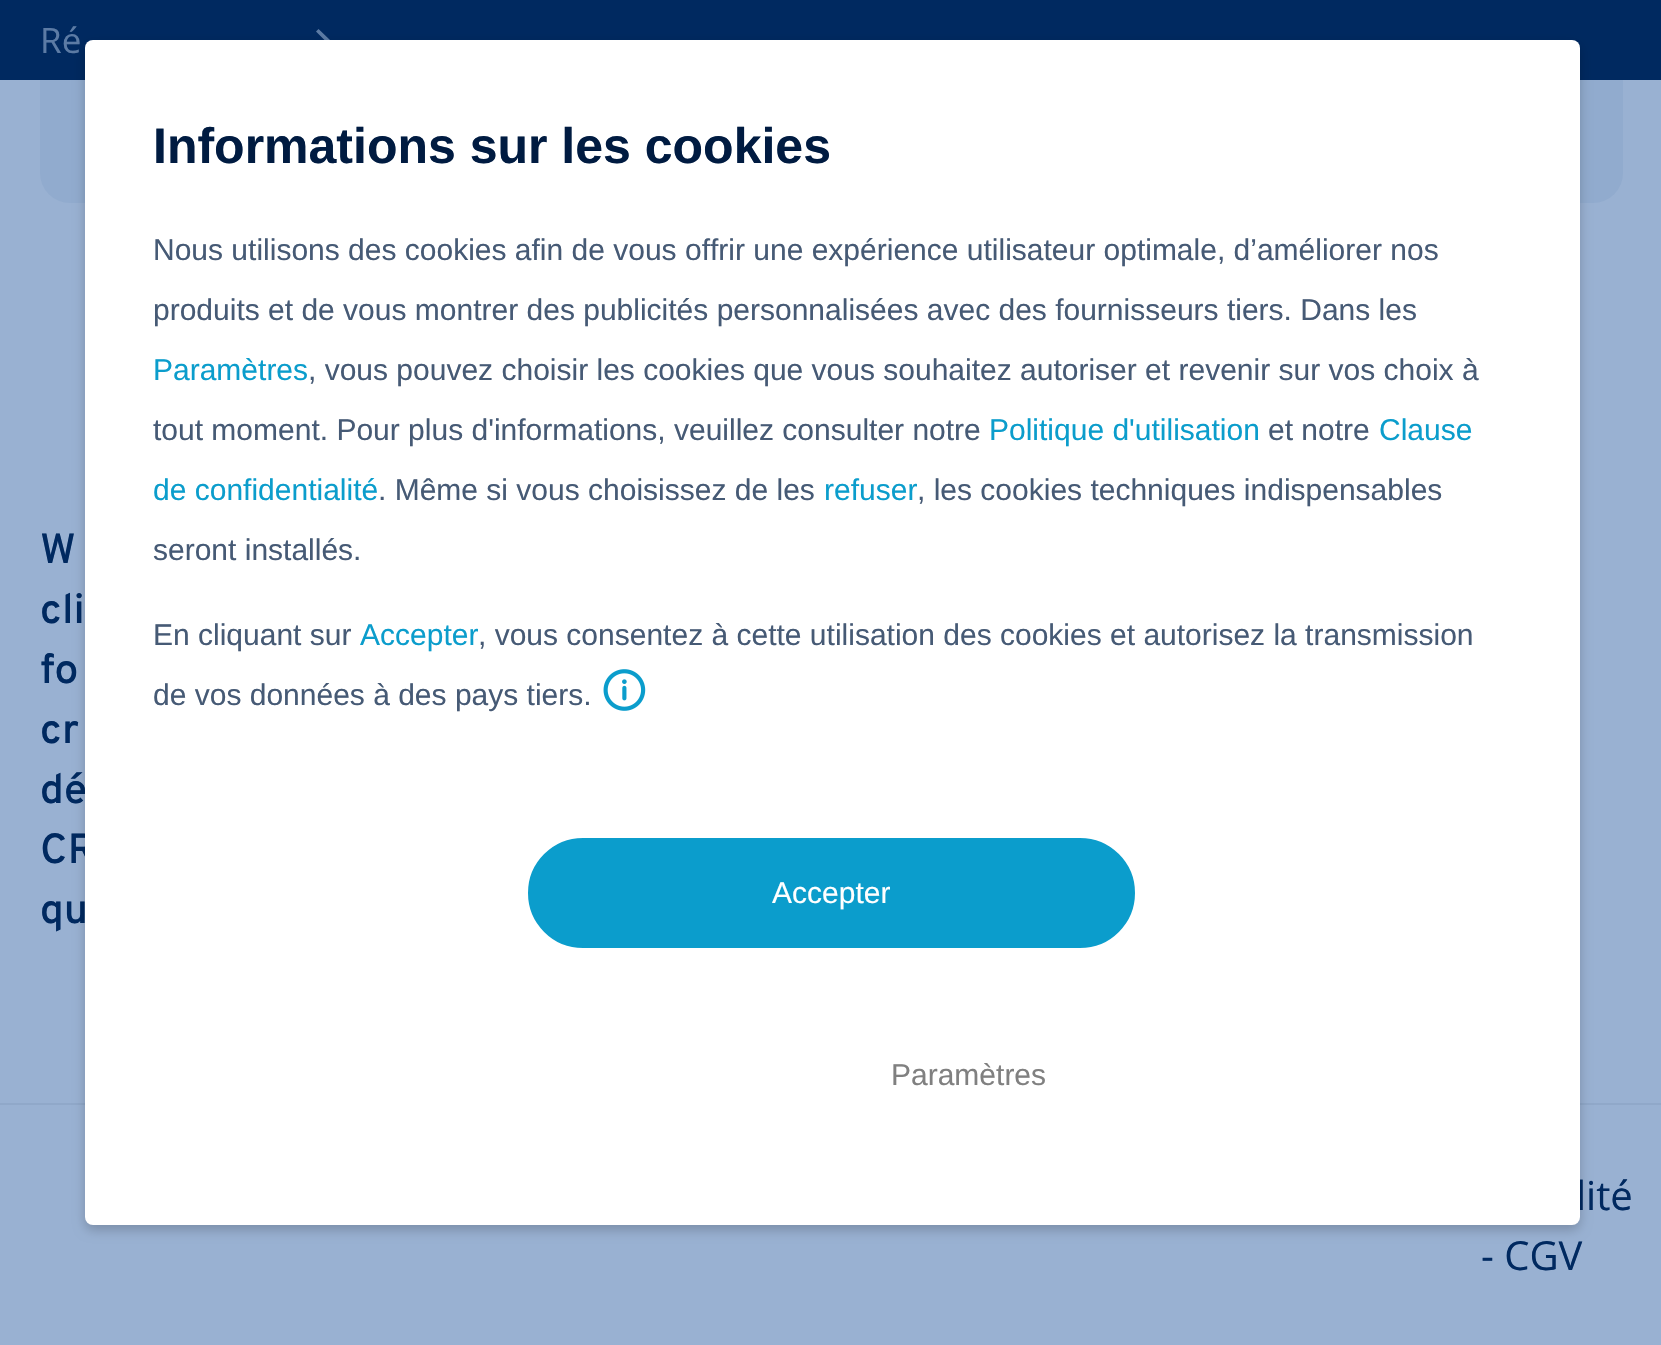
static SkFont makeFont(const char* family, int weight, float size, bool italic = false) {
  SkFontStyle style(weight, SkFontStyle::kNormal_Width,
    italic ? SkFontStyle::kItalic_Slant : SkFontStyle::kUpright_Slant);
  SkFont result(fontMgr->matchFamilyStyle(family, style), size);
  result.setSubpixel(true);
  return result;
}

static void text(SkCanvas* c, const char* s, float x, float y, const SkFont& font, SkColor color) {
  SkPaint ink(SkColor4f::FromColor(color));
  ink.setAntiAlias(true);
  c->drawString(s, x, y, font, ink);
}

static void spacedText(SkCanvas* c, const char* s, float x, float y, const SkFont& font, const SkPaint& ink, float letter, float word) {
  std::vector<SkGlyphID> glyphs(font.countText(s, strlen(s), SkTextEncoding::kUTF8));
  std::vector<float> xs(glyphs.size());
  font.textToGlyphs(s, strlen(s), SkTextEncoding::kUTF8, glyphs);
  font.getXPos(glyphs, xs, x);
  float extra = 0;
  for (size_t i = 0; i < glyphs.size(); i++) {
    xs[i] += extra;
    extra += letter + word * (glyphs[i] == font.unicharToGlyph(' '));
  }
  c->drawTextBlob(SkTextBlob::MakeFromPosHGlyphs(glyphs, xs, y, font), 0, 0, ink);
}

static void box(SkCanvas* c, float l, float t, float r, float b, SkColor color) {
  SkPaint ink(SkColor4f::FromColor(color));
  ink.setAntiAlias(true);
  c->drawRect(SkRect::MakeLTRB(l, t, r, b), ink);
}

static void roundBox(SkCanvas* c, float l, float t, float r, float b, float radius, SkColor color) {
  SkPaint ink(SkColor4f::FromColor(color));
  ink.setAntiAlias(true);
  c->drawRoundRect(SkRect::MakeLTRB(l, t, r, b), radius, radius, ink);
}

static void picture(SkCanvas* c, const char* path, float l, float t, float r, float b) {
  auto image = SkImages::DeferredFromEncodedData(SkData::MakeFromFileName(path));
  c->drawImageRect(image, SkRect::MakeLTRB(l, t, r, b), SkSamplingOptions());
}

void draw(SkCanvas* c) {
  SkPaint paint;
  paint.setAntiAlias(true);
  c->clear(0xff99b1d2);
  roundBox(c, 40, -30, 1623, 203, 30, 0xff91abce);
  box(c, 0, 0, 1661, 80, 0xff002960);
  SkFont face1 = makeFont("Open Sans", 400, 35);
  text(c, "Ré", 40, 53, face1, 0xff5c7ba5);
  paint.setColor(0xff5c7ba5);
  c->drawPath(SkPathBuilder().moveTo(318.5f, 29).lineTo(316, 31.5f).lineTo(324.5f, 40).lineTo(316, 48.5f).lineTo(318.5f, 51).lineTo(330, 40).close().detach(), paint);
  SkFont face2 = makeFont("Overpass", 600, 42);
  paint.setColor(0xff002960);
  spacedText(c, "W", 40, 563, face2, paint, 0.5f, 0);
  spacedText(c, "cli", 40, 623, face2, paint, 0.5f, 0);
  spacedText(c, "fo", 40, 683, face2, paint, 0.5f, 0);
  spacedText(c, "cr", 40, 743, face2, paint, 0.5f, 0);
  spacedText(c, "dé", 40, 803, face2, paint, 0.5f, 0);
  spacedText(c, "CR", 40, 863, face2, paint, 0.5f, 0);
  spacedText(c, "qu", 40, 923, face2, paint, 0.5f, 0);
  box(c, 0, 1103, 1661, 1105, 0xff90a8c9);
  SkFont face3 = makeFont("Open Sans", 400, 40);
  text(c, "lité", 1576, 1210, face3, 0xff002960);
  text(c, "- CGV", 1481, 1270, face3, 0xff002960);
  paint.setColor(0x33000000);
  paint.setMaskFilter(SkMaskFilter::MakeBlur(kNormal_SkBlurStyle, 6));
  c->drawRoundRect(SkRect::MakeLTRB(85, 45, 1580, 1230), 8, 8, paint);
  paint.setMaskFilter(nullptr);
  roundBox(c, 85, 40, 1580, 1225, 8, 0xffffffff);
  SkFont face4 = makeFont("Liberation Sans", 700, 50);
  text(c, "Informations sur les cookies", 153, 163, face4, 0xff001b41);
  SkFont face5 = makeFont("Liberation Sans", 400, 30);
  text(c, "Nous utilisons des cookies afin de vous offrir une expérience utilisateur optimale, d’améliorer nos", 153, 260, face5, 0xff465a75);
  text(c, "produits et de vous montrer des publicités personnalisées avec des fournisseurs tiers. Dans les", 153, 320, face5, 0xff465a75);
  text(c, "Paramètres", 153, 380, face5, 0xff0b9dcc);
  text(c, ", vous pouvez choisir les cookies que vous souhaitez autoriser et revenir sur vos choix à", 308, 380, face5, 0xff465a75);
  text(c, "tout moment. Pour plus d'informations, veuillez consulter notre", 153, 440, face5, 0xff465a75);
  text(c, "Politique d'utilisation", 989, 440, face5, 0xff0b9dcc);
  text(c, "et notre", 1268, 440, face5, 0xff465a75);
  text(c, "Clause", 1379, 440, face5, 0xff0b9dcc);
  text(c, "de confidentialité", 153, 500, face5, 0xff0b9dcc);
  text(c, ". Même si vous choisissez de les", 378, 500, face5, 0xff465a75);
  text(c, "refuser", 824, 500, face5, 0xff0b9dcc);
  text(c, ", les cookies techniques indispensables", 917, 500, face5, 0xff465a75);
  text(c, "seront installés.", 153, 560, face5, 0xff465a75);
  text(c, "En cliquant sur", 153, 645, face5, 0xff465a75);
  text(c, "Accepter", 360, 645, face5, 0xff0b9dcc);
  text(c, ", vous consentez à cette utilisation des cookies et autorisez la transmission", 478, 645, face5, 0xff465a75);
  text(c, "de vos données à des pays tiers.", 153, 705, face5, 0xff465a75);
  picture(c, "img_01.png", 603, 669, 646, 711);
  paint.setColor(0xff0b9dcc);
  c->drawRoundRect(SkRect::MakeLTRB(530.5f, 840.5f, 1132.5f, 945.5f), 52.5f, 52.5f, paint);
  paint.setStyle(SkPaint::kStroke_Style);
  paint.setStrokeWidth(5);
  c->drawRoundRect(SkRect::MakeLTRB(530.5f, 840.5f, 1132.5f, 945.5f), 52.5f, 52.5f, paint);
  text(c, "Accepter", 772, 903, face5, 0xffffffff);
  text(c, "Paramètres", 891, 1085, face5, 0xff808080);
}
